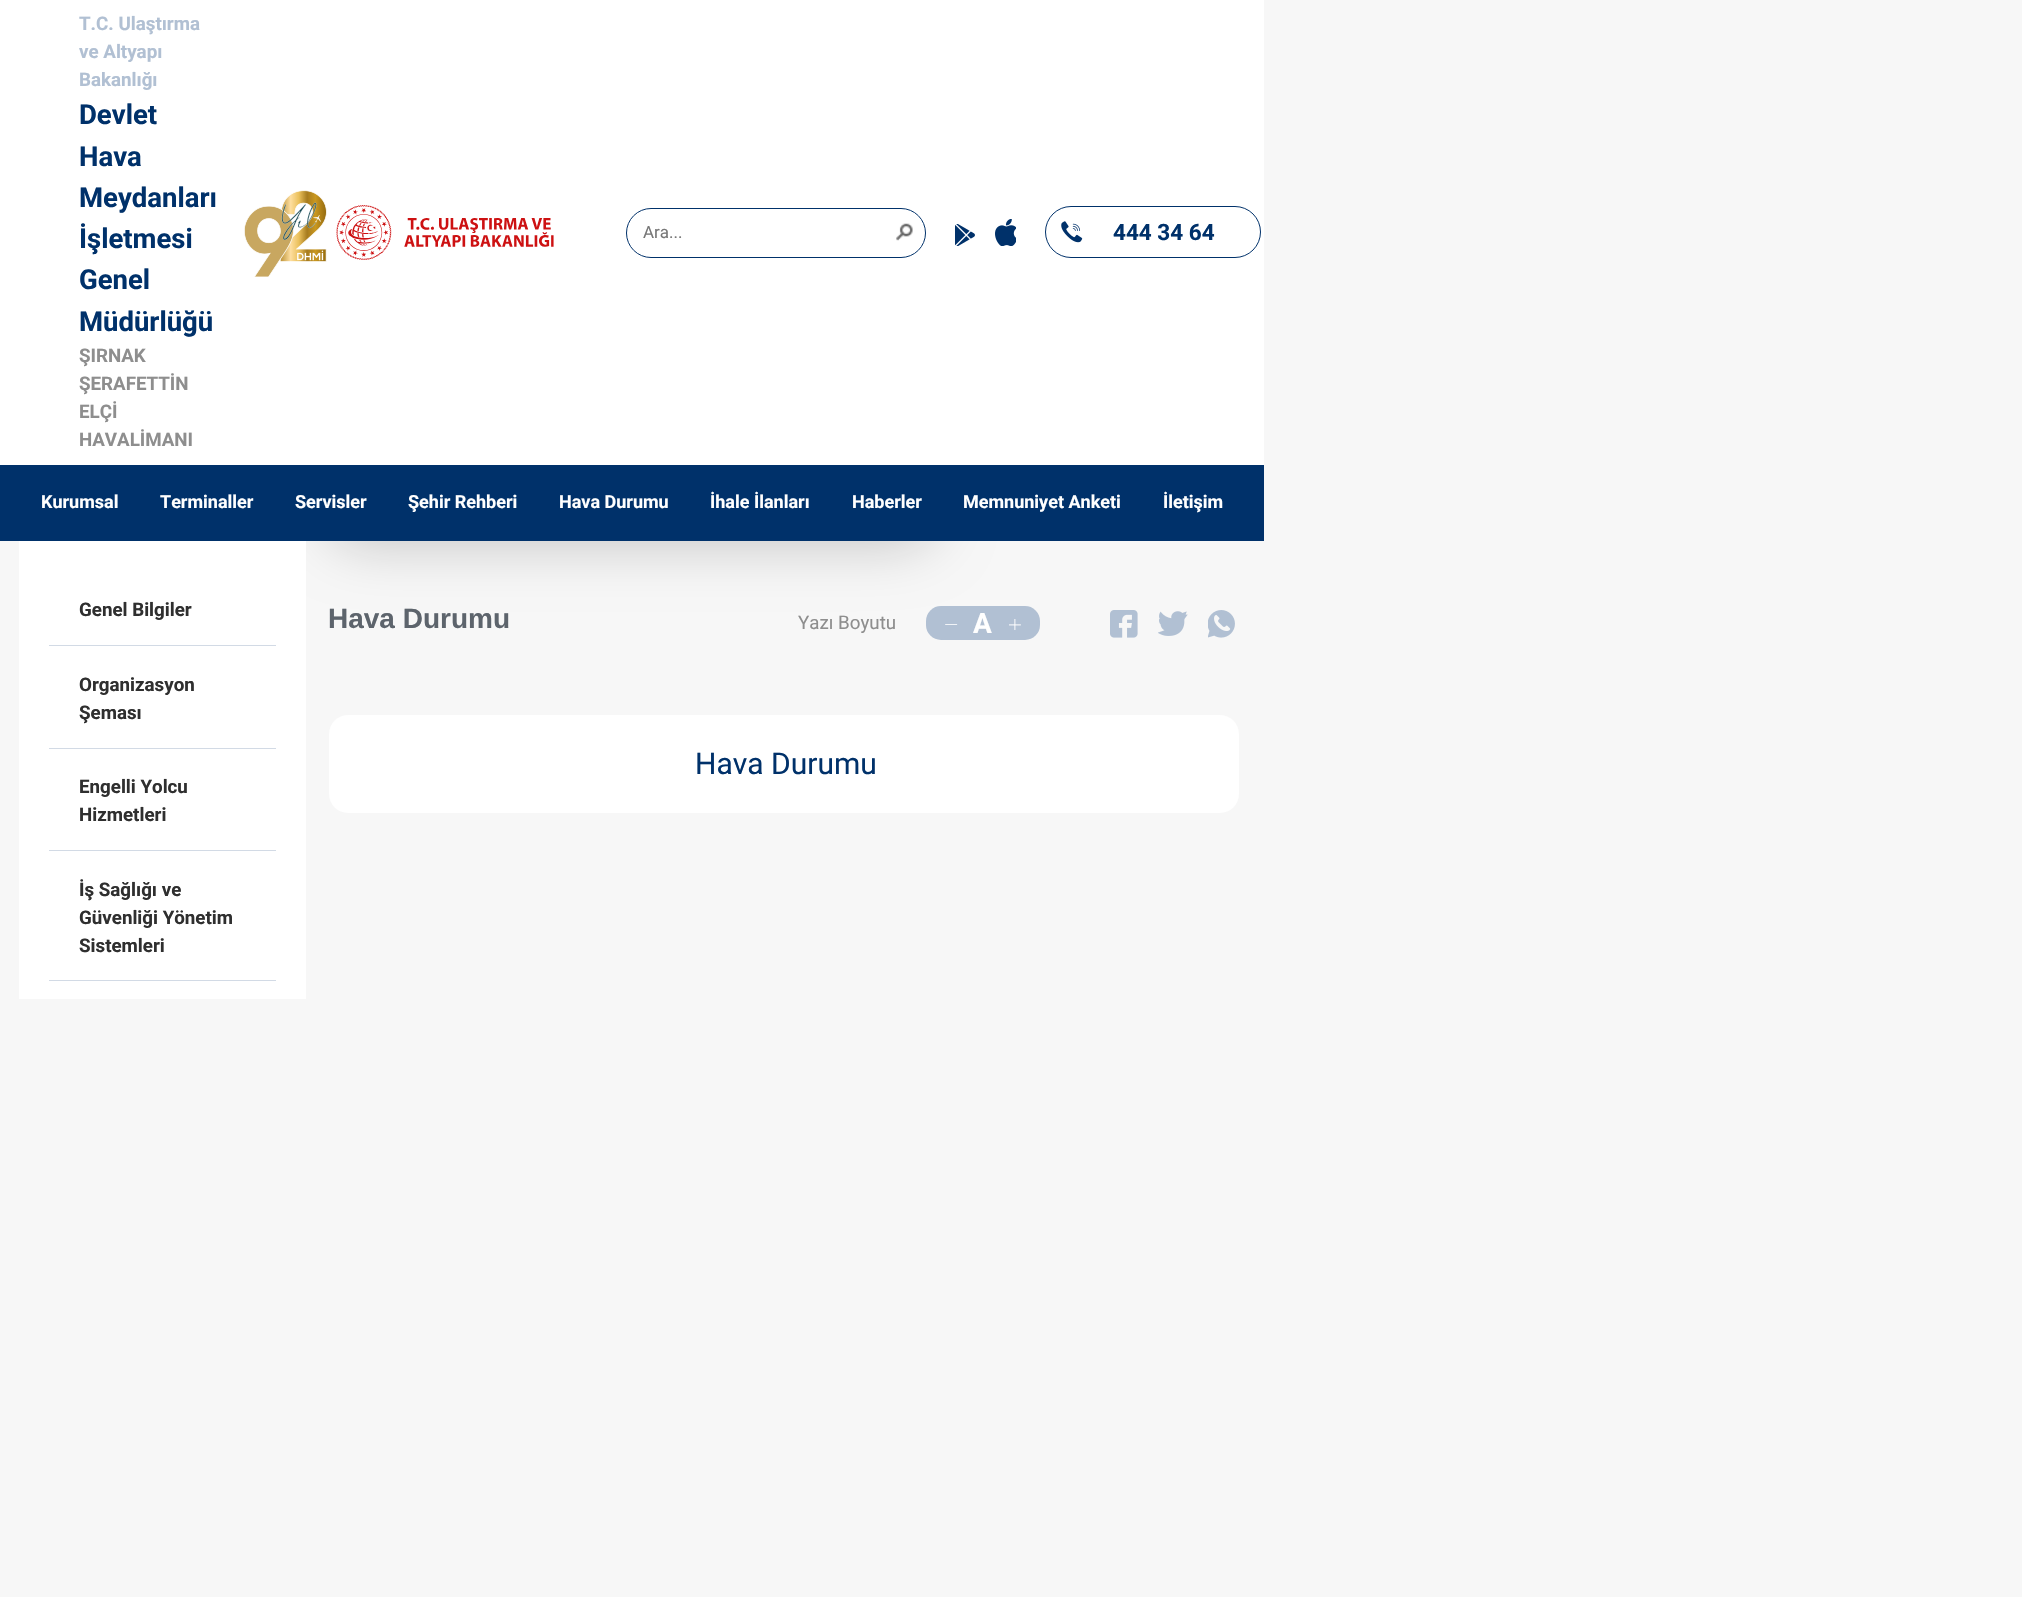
static SkFont makeFont(const char* family, int weight, float size, bool italic = false) {
  SkFontStyle style(weight, SkFontStyle::kNormal_Width,
    italic ? SkFontStyle::kItalic_Slant : SkFontStyle::kUpright_Slant);
  SkFont result(fontMgr->matchFamilyStyle(family, style), size);
  result.setSubpixel(true);
  return result;
}

static void text(SkCanvas* c, const char* s, float x, float y, const SkFont& font, SkColor color) {
  SkPaint ink(SkColor4f::FromColor(color));
  ink.setAntiAlias(true);
  c->drawString(s, x, y, font, ink);
}

static void box(SkCanvas* c, float l, float t, float r, float b, SkColor color) {
  SkPaint ink(SkColor4f::FromColor(color));
  ink.setAntiAlias(true);
  c->drawRect(SkRect::MakeLTRB(l, t, r, b), ink);
}

static void roundBox(SkCanvas* c, float l, float t, float r, float b, float radius, SkColor color) {
  SkPaint ink(SkColor4f::FromColor(color));
  ink.setAntiAlias(true);
  c->drawRoundRect(SkRect::MakeLTRB(l, t, r, b), radius, radius, ink);
}

static void picture(SkCanvas* c, const char* path, float l, float t, float r, float b) {
  auto image = SkImages::DeferredFromEncodedData(SkData::MakeFromFileName(path));
  c->drawImageRect(image, SkRect::MakeLTRB(l, t, r, b), SkSamplingOptions());
}

void draw(SkCanvas* c) {
  SkPaint paint;
  paint.setAntiAlias(true);
  c->clear(0xfff7f7f7);
  paint.setColor(0x33000000);
  paint.setMaskFilter(SkMaskFilter::MakeBlur(kNormal_SkBlurStyle, 27.5f));
  c->drawRoundRect(SkRect::MakeLTRB(326, 468, 938, 545), 38.5f, 38.5f, paint);
  paint.setMaskFilter(nullptr);
  box(c, 0, 0, 1264, 465, 0xffffffff);
  SkFont face1 = makeFont("Roboto", 700, 18.75f);
  text(c, "T.C. Ulaştırma", 79, 30, face1, 0xffb1c0d3);
  text(c, "ve Altyapı", 79, 58, face1, 0xffb1c0d3);
  text(c, "Bakanlığı", 79, 86, face1, 0xffb1c0d3);
  SkFont face2 = makeFont("Roboto", 700, 27.5f);
  text(c, "Devlet", 79, 124, face2, 0xff00316a);
  text(c, "Hava", 79, 166, face2, 0xff00316a);
  text(c, "Meydanları", 79, 207, face2, 0xff00316a);
  text(c, "İşletmesi", 79, 248, face2, 0xff00316a);
  text(c, "Genel", 79, 289, face2, 0xff00316a);
  text(c, "Müdürlüğü", 79, 331, face2, 0xff00316a);
  text(c, "ŞIRNAK", 79, 362, face1, 0xff8e8e8e);
  text(c, "ŞERAFETTİN", 79, 390, face1, 0xff8e8e8e);
  text(c, "ELÇİ", 79, 418, face1, 0xff8e8e8e);
  text(c, "HAVALİMANI", 79, 446, face1, 0xff8e8e8e);
  picture(c, "img_01.png", 244, 190, 327, 277);
  picture(c, "img_02.png", 336, 205, 554, 260);
  paint.setStyle(SkPaint::kStroke_Style);
  paint.setStrokeWidth(1);
  paint.setColor(0xff00316a);
  c->drawRoundRect(SkRect::MakeLTRB(626.5f, 208.5f, 925.5f, 257.5f), 24.5f, 24.5f, paint);
  SkFont face3 = makeFont("Roboto", 400, 17);
  text(c, "Ara...", 643, 238, face3, 0xff777777);
  picture(c, "img_03.png", 896, 223, 913, 241);
  picture(c, "img_04.png", 955, 224, 975, 246);
  picture(c, "img_05.png", 995, 219, 1016, 246);
  c->drawRoundRect(SkRect::MakeLTRB(1045.5f, 206.5f, 1260.5f, 257.5f), 25.5f, 25.5f, paint);
  picture(c, "img_06.png", 1061, 221, 1083, 243);
  SkFont face4 = makeFont("Roboto", 700, 22.5f);
  text(c, "444 34 64", 1113, 240, face4, 0xff00316a);
  box(c, 0, 465, 1264, 541, 0xff00316a);
  SkFont face5 = makeFont("Roboto", 700, 18);
  text(c, "Kurumsal", 41, 508, face5, 0xffffffff);
  text(c, "Terminaller", 160, 508, face5, 0xffffffff);
  text(c, "Servisler", 295, 508, face5, 0xffffffff);
  text(c, "Şehir Rehberi", 408, 508, face5, 0xffffffff);
  text(c, "Hava Durumu", 559, 508, face5, 0xffffffff);
  text(c, "İhale İlanları", 710, 508, face5, 0xffffffff);
  text(c, "Haberler", 852, 508, face5, 0xffffffff);
  text(c, "Memnuniyet Anketi", 963, 508, face5, 0xffffffff);
  text(c, "İletişim", 1163, 508, face5, 0xffffffff);
  box(c, 19, 541, 306, 999, 0xffffffff);
  text(c, "Genel Bilgiler", 79, 616, face1, 0xff2f2f2f);
  box(c, 49, 645, 276, 646, 0xffd2dae5);
  text(c, "Organizasyon", 79, 691, face1, 0xff2f2f2f);
  text(c, "Şeması", 79, 719, face1, 0xff2f2f2f);
  box(c, 49, 748, 276, 749, 0xffd2dae5);
  text(c, "Engelli Yolcu", 79, 793, face1, 0xff2f2f2f);
  text(c, "Hizmetleri", 79, 821, face1, 0xff2f2f2f);
  box(c, 49, 850, 276, 851, 0xffd2dae5);
  text(c, "İş Sağlığı ve", 79, 896, face1, 0xff2f2f2f);
  text(c, "Güvenliği Yönetim", 79, 924, face1, 0xff2f2f2f);
  text(c, "Sistemleri", 79, 952, face1, 0xff2f2f2f);
  box(c, 49, 980, 276, 981, 0xffd2dae5);
  SkFont face6 = makeFont("Liberation Sans", 700, 28);
  text(c, "Hava Durumu", 328, 628, face6, 0xff5d646c);
  SkFont face7 = makeFont("Roboto", 400, 18.75f);
  text(c, "Yazı Boyutu", 798, 629, face7, 0xff8e8e8e);
  roundBox(c, 926, 606, 1040, 640, 15, 0xffb1c0d3);
  picture(c, "img_07.png", 945, 624, 958, 625);
  SkFont face8 = makeFont("Roboto", 700, 28);
  text(c, "A", 973, 633, face8, 0xffffffff);
  picture(c, "img_08.png", 1009, 619, 1021, 630);
  picture(c, "img_09.png", 1110, 610, 1138, 638);
  picture(c, "img_10.png", 1158, 611, 1188, 636);
  picture(c, "img_11.png", 1208, 610, 1235, 638);
  roundBox(c, 329, 715, 1239, 813, 19, 0xffffffff);
  SkFont face9 = makeFont("Roboto", 400, 30);
  text(c, "Hava Durumu", 695, 774, face9, 0xff00316a);
}
